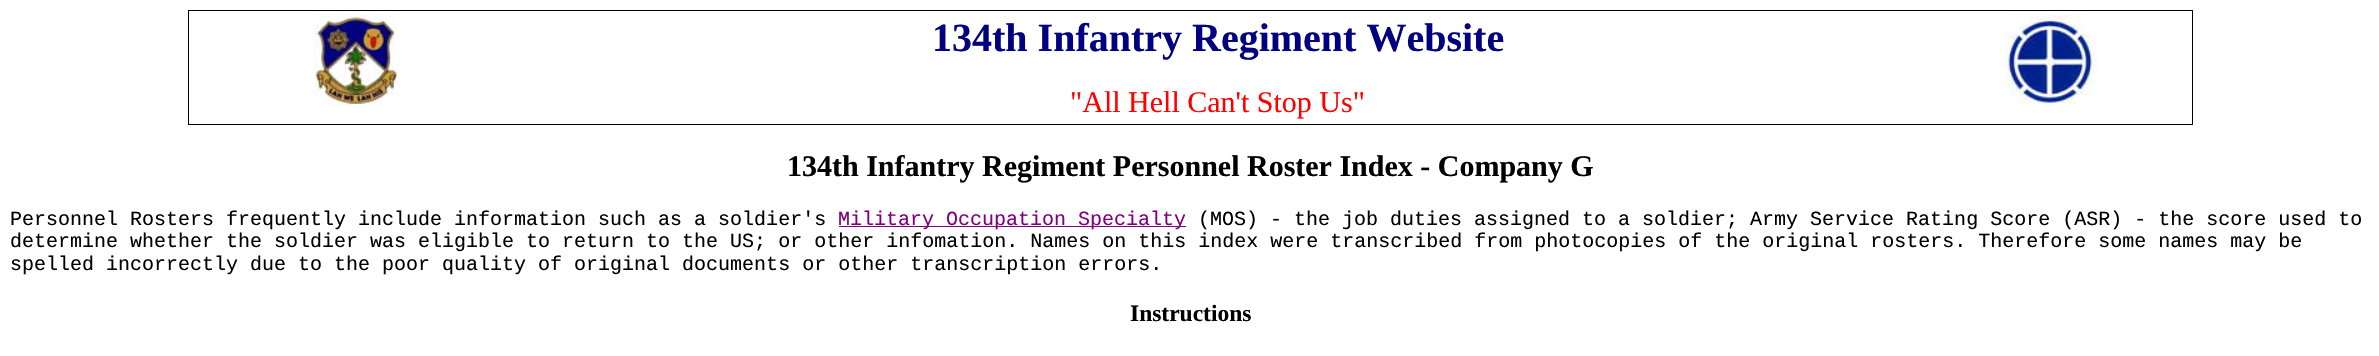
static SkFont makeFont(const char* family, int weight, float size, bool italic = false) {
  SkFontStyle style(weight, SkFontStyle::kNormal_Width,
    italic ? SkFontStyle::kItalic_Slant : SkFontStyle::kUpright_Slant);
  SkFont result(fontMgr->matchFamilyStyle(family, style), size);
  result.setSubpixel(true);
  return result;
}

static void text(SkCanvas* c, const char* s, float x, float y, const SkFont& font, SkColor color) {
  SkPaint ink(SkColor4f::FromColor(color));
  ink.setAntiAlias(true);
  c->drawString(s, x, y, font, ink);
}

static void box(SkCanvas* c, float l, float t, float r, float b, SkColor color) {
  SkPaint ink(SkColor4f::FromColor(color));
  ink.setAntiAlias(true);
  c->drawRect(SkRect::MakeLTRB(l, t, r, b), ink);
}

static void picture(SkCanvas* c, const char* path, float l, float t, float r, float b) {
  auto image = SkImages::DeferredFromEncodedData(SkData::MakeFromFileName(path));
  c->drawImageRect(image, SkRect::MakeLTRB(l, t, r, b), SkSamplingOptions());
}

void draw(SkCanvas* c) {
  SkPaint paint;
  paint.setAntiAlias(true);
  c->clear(0xffffffff);
  paint.setStyle(SkPaint::kStroke_Style);
  paint.setStrokeWidth(1);
  paint.setColor(0xff000000);
  c->drawRect(SkRect::MakeLTRB(188.5f, 10.5f, 2192.5f, 124.5f), paint);
  picture(c, "img_01.png", 313, 15, 399, 106);
  SkFont face1 = makeFont("Liberation Serif", 700, 40);
  text(c, "134th Infantry Regiment Website", 932, 51, face1, 0xff000080);
  SkFont face2 = makeFont("Liberation Serif", 400, 30);
  text(c, "\"All Hell Can't Stop Us\"", 1070, 112, face2, 0xffff0000);
  picture(c, "img_02.png", 2005, 15, 2098, 105);
  SkFont face3 = makeFont("Liberation Serif", 700, 30);
  text(c, "134th Infantry Regiment Personnel Roster Index - Company G", 787, 176, face3, 0xff000000);
  SkFont face4 = makeFont("Liberation Mono", 400, 20);
  text(c, "Personnel Rosters frequently include information such as a soldier's", 10, 225, face4, 0xff000000);
  box(c, 839, 226, 1186, 227, 0xff800080);
  text(c, "Military Occupation Specialty", 838, 225, face4, 0xff800080);
  text(c, "(MOS) - the job duties assigned to a soldier; Army Service Rating Score (ASR) - the score used to", 1198, 225, face4, 0xff000000);
  text(c, "determine whether the soldier was eligible to return to the US; or other infomation. Names on this index were transcribed from photocopies of the original rosters. Therefore some names may be", 10, 247, face4, 0xff000000);
  text(c, "spelled incorrectly due to the poor quality of original documents or other transcription errors.", 10, 270, face4, 0xff000000);
  SkFont face5 = makeFont("Liberation Serif", 700, 23.5f);
  text(c, "Instructions", 1130, 321, face5, 0xff000000);
}
